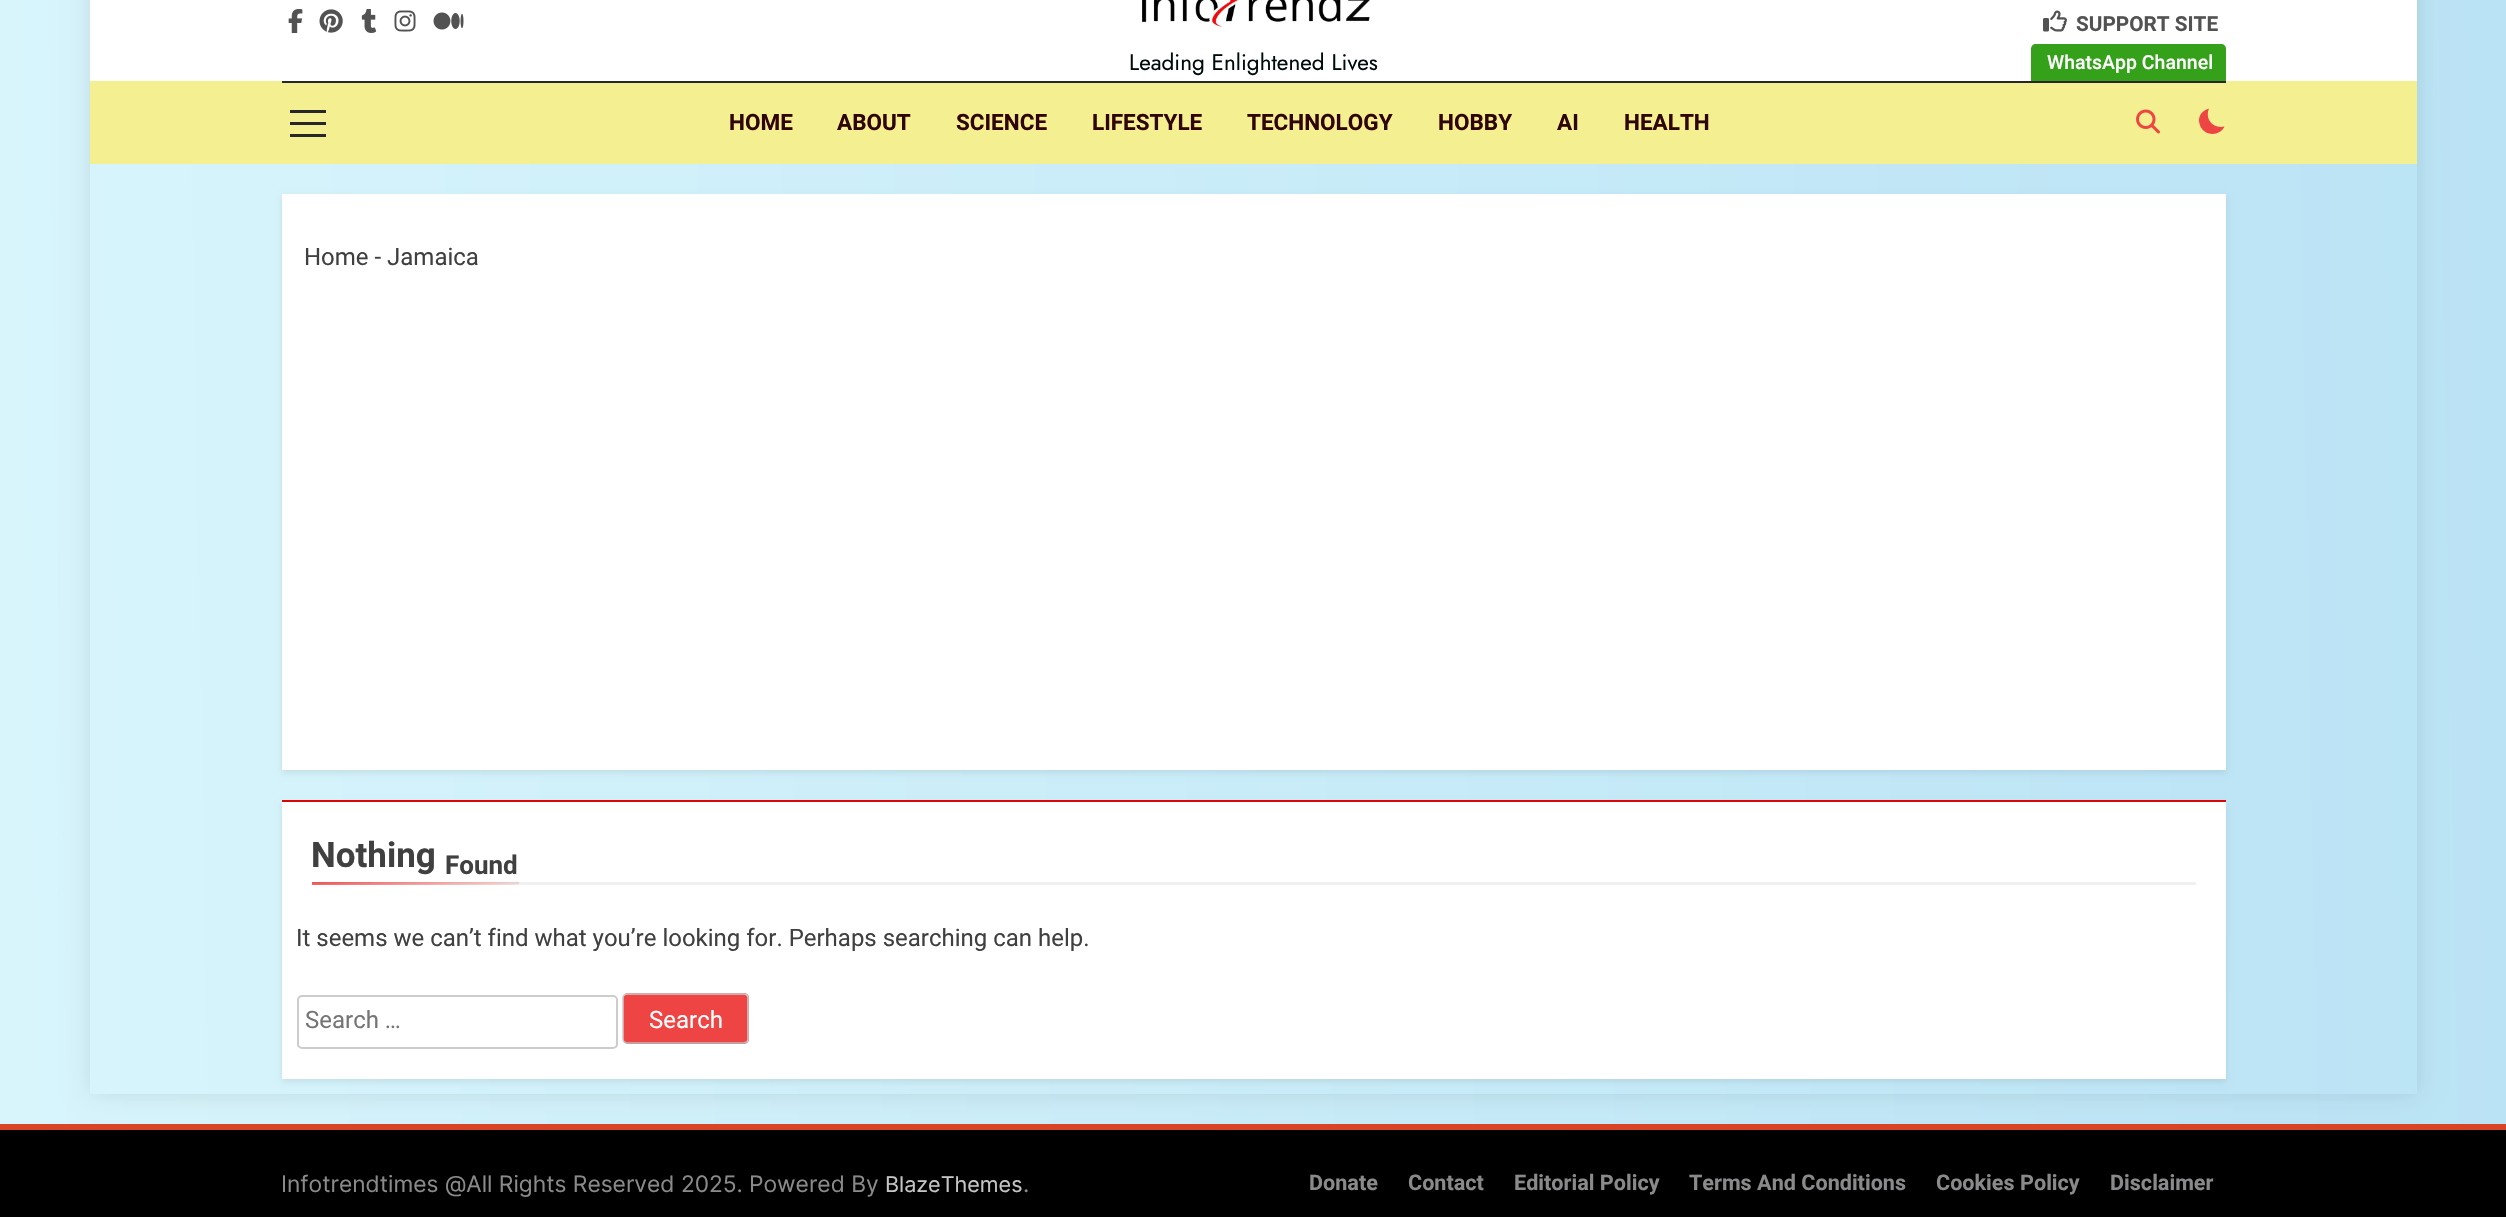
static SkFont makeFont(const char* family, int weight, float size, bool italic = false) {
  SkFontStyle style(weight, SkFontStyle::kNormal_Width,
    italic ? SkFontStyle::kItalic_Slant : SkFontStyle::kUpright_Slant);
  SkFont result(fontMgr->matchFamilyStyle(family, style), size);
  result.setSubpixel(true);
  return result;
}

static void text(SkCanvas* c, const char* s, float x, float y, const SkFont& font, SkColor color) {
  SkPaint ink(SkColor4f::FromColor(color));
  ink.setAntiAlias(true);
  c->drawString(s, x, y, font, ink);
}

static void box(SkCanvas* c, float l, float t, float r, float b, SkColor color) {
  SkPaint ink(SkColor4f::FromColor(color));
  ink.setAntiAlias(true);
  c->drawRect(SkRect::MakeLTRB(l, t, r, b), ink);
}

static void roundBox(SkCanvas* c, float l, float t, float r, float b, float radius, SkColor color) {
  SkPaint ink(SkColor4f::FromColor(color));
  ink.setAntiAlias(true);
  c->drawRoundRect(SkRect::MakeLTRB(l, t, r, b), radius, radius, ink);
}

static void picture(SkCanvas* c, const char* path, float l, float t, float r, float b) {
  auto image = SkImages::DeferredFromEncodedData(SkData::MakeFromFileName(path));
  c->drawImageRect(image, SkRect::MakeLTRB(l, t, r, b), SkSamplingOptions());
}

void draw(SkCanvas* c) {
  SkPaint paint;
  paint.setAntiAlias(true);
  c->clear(0xffffffff);
  {
    const SkColor colors[] = {0xffd8f5fc, 0xffbae3f5};
    const float stops[] = {0, 1};
    const SkPoint ends[] = {{-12, 600}, {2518, 555}};
    paint.setShader(SkGradientShader::MakeLinear(ends, colors, stops, 2, SkTileMode::kClamp));
    paint.setAlpha(255);
  }
  c->drawRect(SkRect::MakeLTRB(0, 0, 2506, 1124), paint);
  box(c, 0, 1124, 2506, 1130, 0xffd94425);
  c->save();
  c->clipPath(SkPathBuilder(SkPathFillType::kEvenOdd).moveTo(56, 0).lineTo(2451, 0).lineTo(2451, 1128).lineTo(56, 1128).close().moveTo(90, -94).lineTo(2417, -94).lineTo(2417, 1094).lineTo(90, 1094).close().detach(), true);
  paint.setShader(nullptr);
  paint.setColor(0x1a000000);
  paint.setMaskFilter(SkMaskFilter::MakeBlur(kNormal_SkBlurStyle, 11));
  c->drawRect(SkRect::MakeLTRB(90, -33, 2417, 1094), paint);
  paint.setMaskFilter(nullptr);
  c->restore();
  box(c, 90, 0, 2417, 81, 0xffffffff);
  picture(c, "img_01.png", 288, 9, 303, 33);
  picture(c, "img_02.png", 319, 9, 343, 33);
  picture(c, "img_03.png", 361, 9, 377, 33);
  picture(c, "img_04.png", 394, 10, 416, 32);
  picture(c, "img_05.png", 433, 12, 464, 30);
  picture(c, "img_06.png", 2043, 10, 2067, 32);
  SkFont face1 = makeFont("Roboto", 700, 20.75f);
  text(c, "SUPPORT SITE", 2076, 31, face1, 0xff525252);
  picture(c, "img_07.png", 1142, 0, 1370, 27);
  SkFont face2 = makeFont("Jost", 400, 22.5f);
  text(c, "Leading Enlightened Lives", 1129, 70, face2, 0xff000c0b);
  box(c, 90, 81, 2417, 164, 0xfff4ef90);
  box(c, 282, 81, 2226, 83, 0xff27272a);
  paint.setColor(0xff35a01a);
  c->drawPath(SkPathBuilder().moveTo(2036, 44).lineTo(2221, 44).cubicTo(2224, 44, 2226, 46, 2226, 49).lineTo(2226, 81).lineTo(2031, 81).lineTo(2031, 49).cubicTo(2031, 46, 2033, 44, 2036, 44).close().detach(), paint);
  SkFont face3 = makeFont("Roboto", 500, 19.5f);
  text(c, "WhatsApp Channel", 2047, 69, face3, 0xffffffff);
  box(c, 290, 110, 326, 113, 0xff27272a);
  box(c, 290, 122, 326, 125, 0xff27272a);
  box(c, 290, 134, 326, 137, 0xff27272a);
  SkFont face4 = makeFont("Roboto", 700, 22.5f);
  text(c, "HOME", 729, 130, face4, 0xff300505);
  text(c, "ABOUT", 837, 130, face4, 0xff300505);
  text(c, "SCIENCE", 956, 130, face4, 0xff300505);
  text(c, "LIFESTYLE", 1092, 130, face4, 0xff300505);
  text(c, "TECHNOLOGY", 1247, 130, face4, 0xff300505);
  text(c, "HOBBY", 1438, 130, face4, 0xff300505);
  text(c, "AI", 1557, 130, face4, 0xff300505);
  text(c, "HEALTH", 1624, 130, face4, 0xff300505);
  picture(c, "img_08.png", 2136, 109, 2160, 134);
  paint.setColor(0xffef4444);
  c->drawPath(SkPathBuilder().moveTo(2224.5f, 126.5f).cubicTo(2213.5f, 129, 2204.5f, 119.5f, 2209, 108.5f).cubicTo(2205.5f, 109.5f, 2202.5f, 111.5f, 2200.5f, 114.5f).cubicTo(2199, 117.5f, 2198.5f, 120.5f, 2199.5f, 123.5f).cubicTo(2202, 136, 2219.5f, 137.5f, 2224.5f, 126.5f).close().detach(), paint);
  paint.setColor(0x14000000);
  paint.setMaskFilter(SkMaskFilter::MakeBlur(kNormal_SkBlurStyle, 3));
  c->drawRect(SkRect::MakeLTRB(282, 197, 2226, 773), paint);
  paint.setMaskFilter(nullptr);
  box(c, 282, 194, 2226, 770, 0xffffffff);
  SkFont face5 = makeFont("Roboto", 400, 24);
  text(c, "Home - Jamaica", 304, 265, face5, 0xff404040);
  paint.setMaskFilter(SkMaskFilter::MakeBlur(kNormal_SkBlurStyle, 3));
  c->drawRect(SkRect::MakeLTRB(282, 804, 2226, 1082), paint);
  paint.setMaskFilter(nullptr);
  box(c, 282, 802, 2226, 1079, 0xffffffff);
  box(c, 282, 800, 2226, 802, 0xffdb0505);
  box(c, 519, 882, 2196, 885, 0xfff0f0f0);
  SkFont face6 = makeFont("Roboto", 700, 35);
  text(c, "Nothing", 311, 867, face6, 0xff404040);
  SkFont face7 = makeFont("Roboto", 700, 26);
  text(c, "Found", 445, 874, face7, 0xff404040);
  {
    const SkColor colors[] = {0xffef4444, 0xfff0f0f0};
    const float stops[] = {0, 1};
    const SkPoint ends[] = {{415, 875}, {416, 892}};
    paint.setShader(SkGradientShader::MakeLinear(ends, colors, stops, 2, SkTileMode::kClamp));
    paint.setAlpha(255);
  }
  c->drawRect(SkRect::MakeLTRB(312, 882, 519, 885), paint);
  text(c, "It seems we can’t find what you’re looking for. Perhaps searching can help.", 296, 946, face5, 0xff404040);
  paint.setStyle(SkPaint::kStroke_Style);
  paint.setStrokeWidth(2);
  paint.setShader(nullptr);
  paint.setColor(0xffcccccc);
  c->drawRoundRect(SkRect::MakeLTRB(298, 996, 617, 1048), 4, 4, paint);
  text(c, "Search …", 305, 1028, face5, 0xff757575);
  roundBox(c, 623, 993, 749, 1044, 5, 0xffef4444);
  paint.setStrokeWidth(1.5f);
  paint.setColor(0xffbbbbbb);
  c->drawPath(SkPathBuilder().moveTo(746.5f, 1042).lineTo(744, 1043).lineTo(626.5f, 1043).lineTo(624.5f, 1042).detach(), paint);
  paint.setColor(0xffcccccc);
  c->drawPath(SkPathBuilder().moveTo(624.5f, 1042).cubicTo(623.5f, 1041.5f, 623, 1040.5f, 623, 1039.5f).lineTo(623, 997.5f).cubicTo(623, 996.5f, 623.5f, 995.5f, 624.5f, 995).cubicTo(625, 994, 626, 994, 627, 994).lineTo(744, 994).cubicTo(745, 994, 746, 994, 746.5f, 995).cubicTo(747.5f, 995.5f, 748, 996.5f, 748, 997.5f).lineTo(748, 1039.5f).cubicTo(748, 1040.5f, 747.5f, 1041.5f, 746.5f, 1042).detach(), paint);
  text(c, "Search", 649, 1028, face5, 0xffffffff);
  box(c, 0, 1130, 2506, 1217, 0xff000000);
  SkFont face8 = makeFont("Inter", 400, 22.8f);
  text(c, "Infotrendtimes @All Rights Reserved 2025.", 281, 1192, face8, 0xff8a8a8c);
  text(c, "Powered By", 749, 1192, face8, 0xff8a8a8c);
  SkFont face9 = makeFont("Inter", 400, 21.6f);
  text(c, "BlazeThemes", 885, 1192, face9, 0xffc5c5c5);
  text(c, ".", 1023, 1192, face8, 0xff8a8a8c);
  SkFont face10 = makeFont("Roboto", 700, 21.6f);
  text(c, "Donate", 1309, 1190, face10, 0xff8a8a8c);
  text(c, "Contact", 1408, 1190, face10, 0xff8a8a8c);
  text(c, "Editorial Policy", 1514, 1190, face10, 0xff8a8a8c);
  text(c, "Terms And Conditions", 1689, 1190, face10, 0xff8a8a8c);
  text(c, "Cookies Policy", 1936, 1190, face10, 0xff8a8a8c);
  text(c, "Disclaimer", 2110, 1190, face10, 0xff8a8a8c);
}
